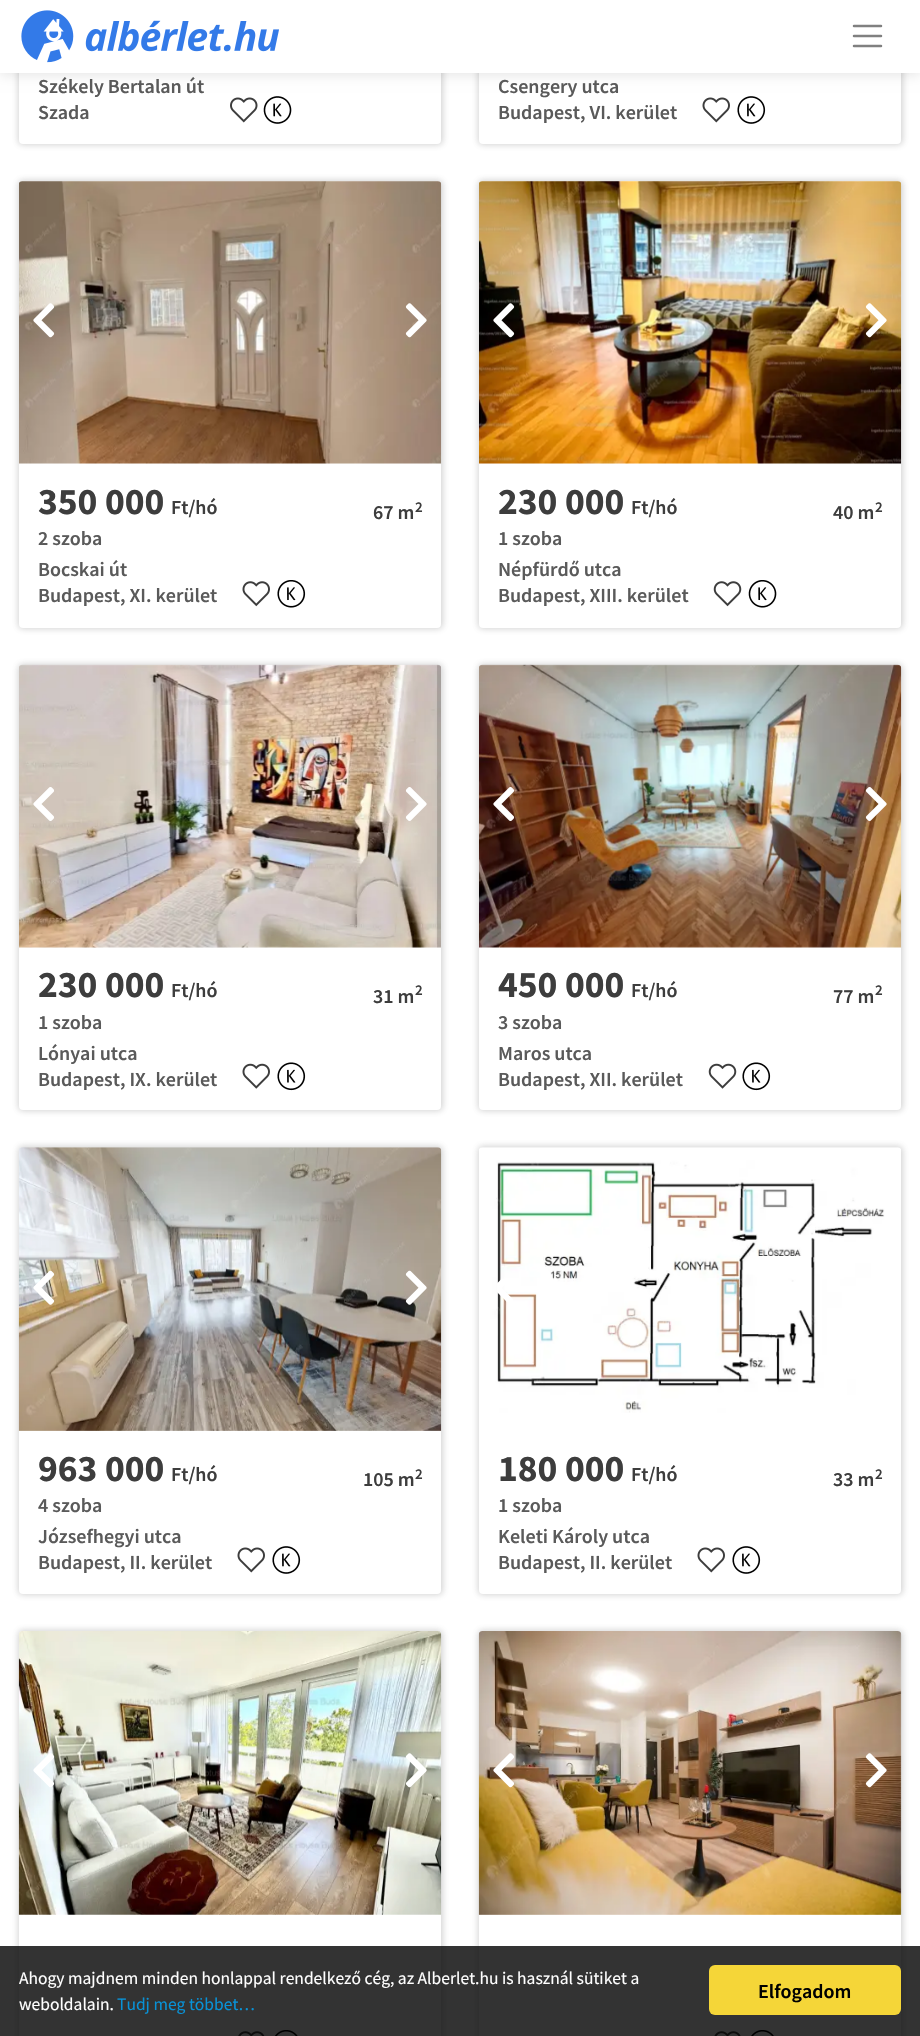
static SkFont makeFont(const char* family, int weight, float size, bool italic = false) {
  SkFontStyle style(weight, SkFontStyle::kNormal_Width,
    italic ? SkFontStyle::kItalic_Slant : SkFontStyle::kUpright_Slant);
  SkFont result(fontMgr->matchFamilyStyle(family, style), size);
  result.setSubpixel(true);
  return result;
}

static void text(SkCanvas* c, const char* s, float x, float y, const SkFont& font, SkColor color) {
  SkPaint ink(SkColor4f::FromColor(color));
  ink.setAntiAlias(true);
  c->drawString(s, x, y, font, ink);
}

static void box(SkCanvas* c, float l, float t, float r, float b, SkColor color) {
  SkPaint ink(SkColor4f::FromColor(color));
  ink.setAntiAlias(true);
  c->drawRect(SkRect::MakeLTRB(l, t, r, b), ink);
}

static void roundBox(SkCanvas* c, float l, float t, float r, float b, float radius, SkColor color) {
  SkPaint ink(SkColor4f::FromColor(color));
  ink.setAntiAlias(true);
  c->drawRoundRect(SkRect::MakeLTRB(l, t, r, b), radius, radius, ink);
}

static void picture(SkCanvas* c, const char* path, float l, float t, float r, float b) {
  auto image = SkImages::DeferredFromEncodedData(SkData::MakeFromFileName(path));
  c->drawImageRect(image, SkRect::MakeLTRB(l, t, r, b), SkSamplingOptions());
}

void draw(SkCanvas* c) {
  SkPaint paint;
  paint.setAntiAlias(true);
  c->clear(0xffffffff);
  paint.setColor(0x40505050);
  paint.setMaskFilter(SkMaskFilter::MakeBlur(kNormal_SkBlurStyle, 3));
  c->drawRoundRect(SkRect::MakeLTRB(18, -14, 443, 145), 5, 5, paint);
  paint.setMaskFilter(nullptr);
  roundBox(c, 19, -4, 441, 144, 4, 0xffffffff);
  paint.setMaskFilter(SkMaskFilter::MakeBlur(kNormal_SkBlurStyle, 3));
  c->drawRoundRect(SkRect::MakeLTRB(478, -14, 903, 145), 5, 5, paint);
  paint.setMaskFilter(nullptr);
  roundBox(c, 479, -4, 901, 144, 4, 0xffffffff);
  paint.setColor(0x1a000000);
  paint.setMaskFilter(SkMaskFilter::MakeBlur(kNormal_SkBlurStyle, 6));
  c->drawRect(SkRect::MakeLTRB(0, 3, 920, 75), paint);
  paint.setMaskFilter(nullptr);
  box(c, 0, 0, 920, 73, 0xffffffff);
  picture(c, "img_01.png", 21, 10, 279, 63);
  paint.setStyle(SkPaint::kStroke_Style);
  paint.setStrokeWidth(2.5f);
  paint.setStrokeCap(SkPaint::kRound_Cap);
  paint.setColor(0xff808080);
  c->drawPath(SkPathBuilder().moveTo(854, 26).lineTo(881, 26).moveTo(854, 36).lineTo(881, 36).moveTo(854, 46).lineTo(881, 46).detach(), paint);
  SkFont face1 = makeFont("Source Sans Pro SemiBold", 600, 20);
  text(c, "Székely Bertalan út", 38, 93, face1, 0xff5a5a5a);
  text(c, "Szada", 38, 119, face1, 0xff5a5a5a);
  picture(c, "img_02.png", 230, 97, 258, 123);
  picture(c, "img_03.png", 263, 96, 292, 124);
  text(c, "Csengery utca", 498, 93, face1, 0xff5a5a5a);
  text(c, "Budapest, VI. kerület", 498, 119, face1, 0xff5a5a5a);
  picture(c, "img_04.png", 702, 97, 730, 123);
  picture(c, "img_05.png", 737, 96, 766, 124);
  paint.setStyle(SkPaint::kFill_Style);
  paint.setColor(0x40505050);
  paint.setMaskFilter(SkMaskFilter::MakeBlur(kNormal_SkBlurStyle, 3));
  c->drawRoundRect(SkRect::MakeLTRB(18, 180, 443, 629), 5, 5, paint);
  paint.setMaskFilter(nullptr);
  roundBox(c, 19, 181, 441, 628, 4, 0xffffffff);
  picture(c, "img_06.png", 19, 181, 442, 464);
  picture(c, "img_07.png", 33, 303, 55, 338);
  picture(c, "img_08.png", 405, 303, 427, 338);
  SkFont face2 = makeFont("Source Sans Pro", 700, 37.5f);
  text(c, "350 000", 38, 514, face2, 0xff3d3d3d);
  text(c, "Ft/hó", 171, 514, face1, 0xff3d3d3d);
  text(c, "67 m", 373, 519, face1, 0xff3d3d3d);
  SkFont face3 = makeFont("Source Sans Pro SemiBold", 600, 15);
  text(c, "2", 415, 512, face3, 0xff3d3d3d);
  text(c, "2 szoba", 38, 545, face1, 0xff5a5a5a);
  text(c, "Bocskai út", 38, 576, face1, 0xff5a5a5a);
  text(c, "Budapest, XI. kerület", 38, 602, face1, 0xff5a5a5a);
  picture(c, "img_09.png", 242, 581, 270, 607);
  picture(c, "img_10.png", 277, 580, 306, 608);
  paint.setMaskFilter(SkMaskFilter::MakeBlur(kNormal_SkBlurStyle, 3));
  c->drawRoundRect(SkRect::MakeLTRB(478, 180, 903, 629), 5, 5, paint);
  paint.setMaskFilter(nullptr);
  roundBox(c, 479, 181, 901, 628, 4, 0xffffffff);
  picture(c, "img_11.png", 479, 181, 902, 464);
  picture(c, "img_12.png", 493, 303, 515, 338);
  picture(c, "img_13.png", 865, 303, 887, 338);
  text(c, "230 000", 498, 514, face2, 0xff3d3d3d);
  text(c, "Ft/hó", 631, 514, face1, 0xff3d3d3d);
  text(c, "40 m", 833, 519, face1, 0xff3d3d3d);
  text(c, "2", 875, 512, face3, 0xff3d3d3d);
  text(c, "1 szoba", 498, 545, face1, 0xff5a5a5a);
  text(c, "Népfürdő utca", 498, 576, face1, 0xff5a5a5a);
  text(c, "Budapest, XIII. kerület", 498, 602, face1, 0xff5a5a5a);
  picture(c, "img_14.png", 713, 581, 742, 607);
  picture(c, "img_15.png", 748, 580, 777, 608);
  paint.setMaskFilter(SkMaskFilter::MakeBlur(kNormal_SkBlurStyle, 3));
  c->drawRoundRect(SkRect::MakeLTRB(18, 664, 443, 1111), 5, 5, paint);
  paint.setMaskFilter(nullptr);
  roundBox(c, 19, 665, 441, 1110, 4, 0xffffffff);
  picture(c, "img_16.png", 19, 664, 441, 948);
  picture(c, "img_17.png", 33, 787, 54, 821);
  picture(c, "img_18.png", 405, 787, 427, 821);
  text(c, "230 000", 38, 997, face2, 0xff3d3d3d);
  text(c, "Ft/hó", 171, 997, face1, 0xff3d3d3d);
  text(c, "31 m", 373, 1003, face1, 0xff3d3d3d);
  text(c, "2", 415, 995, face3, 0xff3d3d3d);
  text(c, "1 szoba", 38, 1029, face1, 0xff5a5a5a);
  text(c, "Lónyai utca", 38, 1060, face1, 0xff5a5a5a);
  text(c, "Budapest, IX. kerület", 38, 1086, face1, 0xff5a5a5a);
  picture(c, "img_19.png", 242, 1063, 270, 1089);
  picture(c, "img_20.png", 277, 1062, 306, 1091);
  paint.setMaskFilter(SkMaskFilter::MakeBlur(kNormal_SkBlurStyle, 3));
  c->drawRoundRect(SkRect::MakeLTRB(478, 664, 903, 1111), 5, 5, paint);
  paint.setMaskFilter(nullptr);
  roundBox(c, 479, 665, 901, 1110, 4, 0xffffffff);
  picture(c, "img_21.png", 479, 664, 902, 948);
  picture(c, "img_22.png", 493, 787, 515, 821);
  picture(c, "img_23.png", 865, 787, 887, 821);
  text(c, "450 000", 498, 997, face2, 0xff3d3d3d);
  text(c, "Ft/hó", 631, 997, face1, 0xff3d3d3d);
  text(c, "77 m", 833, 1003, face1, 0xff3d3d3d);
  text(c, "2", 875, 995, face3, 0xff3d3d3d);
  text(c, "3 szoba", 498, 1029, face1, 0xff5a5a5a);
  text(c, "Maros utca", 498, 1060, face1, 0xff5a5a5a);
  text(c, "Budapest, XII. kerület", 498, 1086, face1, 0xff5a5a5a);
  picture(c, "img_24.png", 708, 1063, 737, 1089);
  picture(c, "img_20.png", 742, 1062, 771, 1091);
  paint.setMaskFilter(SkMaskFilter::MakeBlur(kNormal_SkBlurStyle, 3));
  c->drawRoundRect(SkRect::MakeLTRB(18, 1146, 443, 1595), 5, 5, paint);
  paint.setMaskFilter(nullptr);
  roundBox(c, 19, 1148, 441, 1594, 4, 0xffffffff);
  picture(c, "img_25.png", 18, 1147, 442, 1431);
  picture(c, "img_26.png", 33, 1270, 55, 1305);
  picture(c, "img_27.png", 405, 1270, 427, 1305);
  text(c, "963 000", 38, 1481, face2, 0xff3d3d3d);
  text(c, "Ft/hó", 171, 1481, face1, 0xff3d3d3d);
  text(c, "105 m", 363, 1486, face1, 0xff3d3d3d);
  text(c, "2", 415, 1479, face3, 0xff3d3d3d);
  text(c, "4 szoba", 38, 1512, face1, 0xff5a5a5a);
  text(c, "Józsefhegyi utca", 38, 1543, face1, 0xff5a5a5a);
  text(c, "Budapest, II. kerület", 38, 1569, face1, 0xff5a5a5a);
  picture(c, "img_04.png", 237, 1547, 265, 1573);
  picture(c, "img_05.png", 272, 1546, 301, 1574);
  paint.setMaskFilter(SkMaskFilter::MakeBlur(kNormal_SkBlurStyle, 3));
  c->drawRoundRect(SkRect::MakeLTRB(478, 1146, 903, 1595), 5, 5, paint);
  paint.setMaskFilter(nullptr);
  roundBox(c, 479, 1148, 901, 1594, 4, 0xffffffff);
  picture(c, "img_28.png", 479, 1147, 901, 1413);
  picture(c, "img_29.png", 497, 1279, 513, 1302);
  text(c, "180 000", 498, 1481, face2, 0xff3d3d3d);
  text(c, "Ft/hó", 631, 1481, face1, 0xff3d3d3d);
  text(c, "33 m", 833, 1486, face1, 0xff3d3d3d);
  text(c, "2", 875, 1479, face3, 0xff3d3d3d);
  text(c, "1 szoba", 498, 1512, face1, 0xff5a5a5a);
  text(c, "Keleti Károly utca", 498, 1543, face1, 0xff5a5a5a);
  text(c, "Budapest, II. kerület", 498, 1569, face1, 0xff5a5a5a);
  picture(c, "img_04.png", 697, 1547, 725, 1573);
  picture(c, "img_05.png", 732, 1546, 761, 1574);
  paint.setMaskFilter(SkMaskFilter::MakeBlur(kNormal_SkBlurStyle, 3));
  c->drawRoundRect(SkRect::MakeLTRB(18, 1630, 443, 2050), 5, 5, paint);
  paint.setMaskFilter(nullptr);
  roundBox(c, 19, 1631, 441, 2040, 4, 0xffffffff);
  picture(c, "img_30.png", 18, 1631, 442, 1915);
  picture(c, "img_31.png", 33, 1753, 55, 1788);
  picture(c, "img_32.png", 405, 1753, 427, 1788);
  picture(c, "img_33.png", 238, 2031, 265, 2036);
  picture(c, "img_34.png", 275, 2030, 298, 2036);
  paint.setMaskFilter(SkMaskFilter::MakeBlur(kNormal_SkBlurStyle, 3));
  c->drawRoundRect(SkRect::MakeLTRB(478, 1630, 903, 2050), 5, 5, paint);
  paint.setMaskFilter(nullptr);
  roundBox(c, 479, 1631, 901, 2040, 4, 0xffffffff);
  picture(c, "img_35.png", 478, 1631, 902, 1915);
  picture(c, "img_36.png", 493, 1753, 515, 1788);
  picture(c, "img_37.png", 865, 1753, 887, 1788);
  picture(c, "img_38.png", 714, 2031, 741, 2036);
  picture(c, "img_39.png", 751, 2030, 774, 2036);
  box(c, 0, 1946, 920, 2036, 0xcc000000);
  SkFont face4 = makeFont("Source Sans Pro", 400, 17.5f);
  text(c, "Ahogy majdnem minden honlappal rendelkező cég, az Alberlet.hu is használ sütiket a", 19, 1984, face4, 0xffffffff);
  text(c, "weboldalain.", 19, 2010, face4, 0xffffffff);
  text(c, "Tudj meg többet…", 117, 2010, face4, 0xff0892d7);
  roundBox(c, 709, 1965, 901, 2015, 6, 0xfff5d638);
  text(c, "Elfogadom", 758, 1998, face1, 0xff000000);
}
